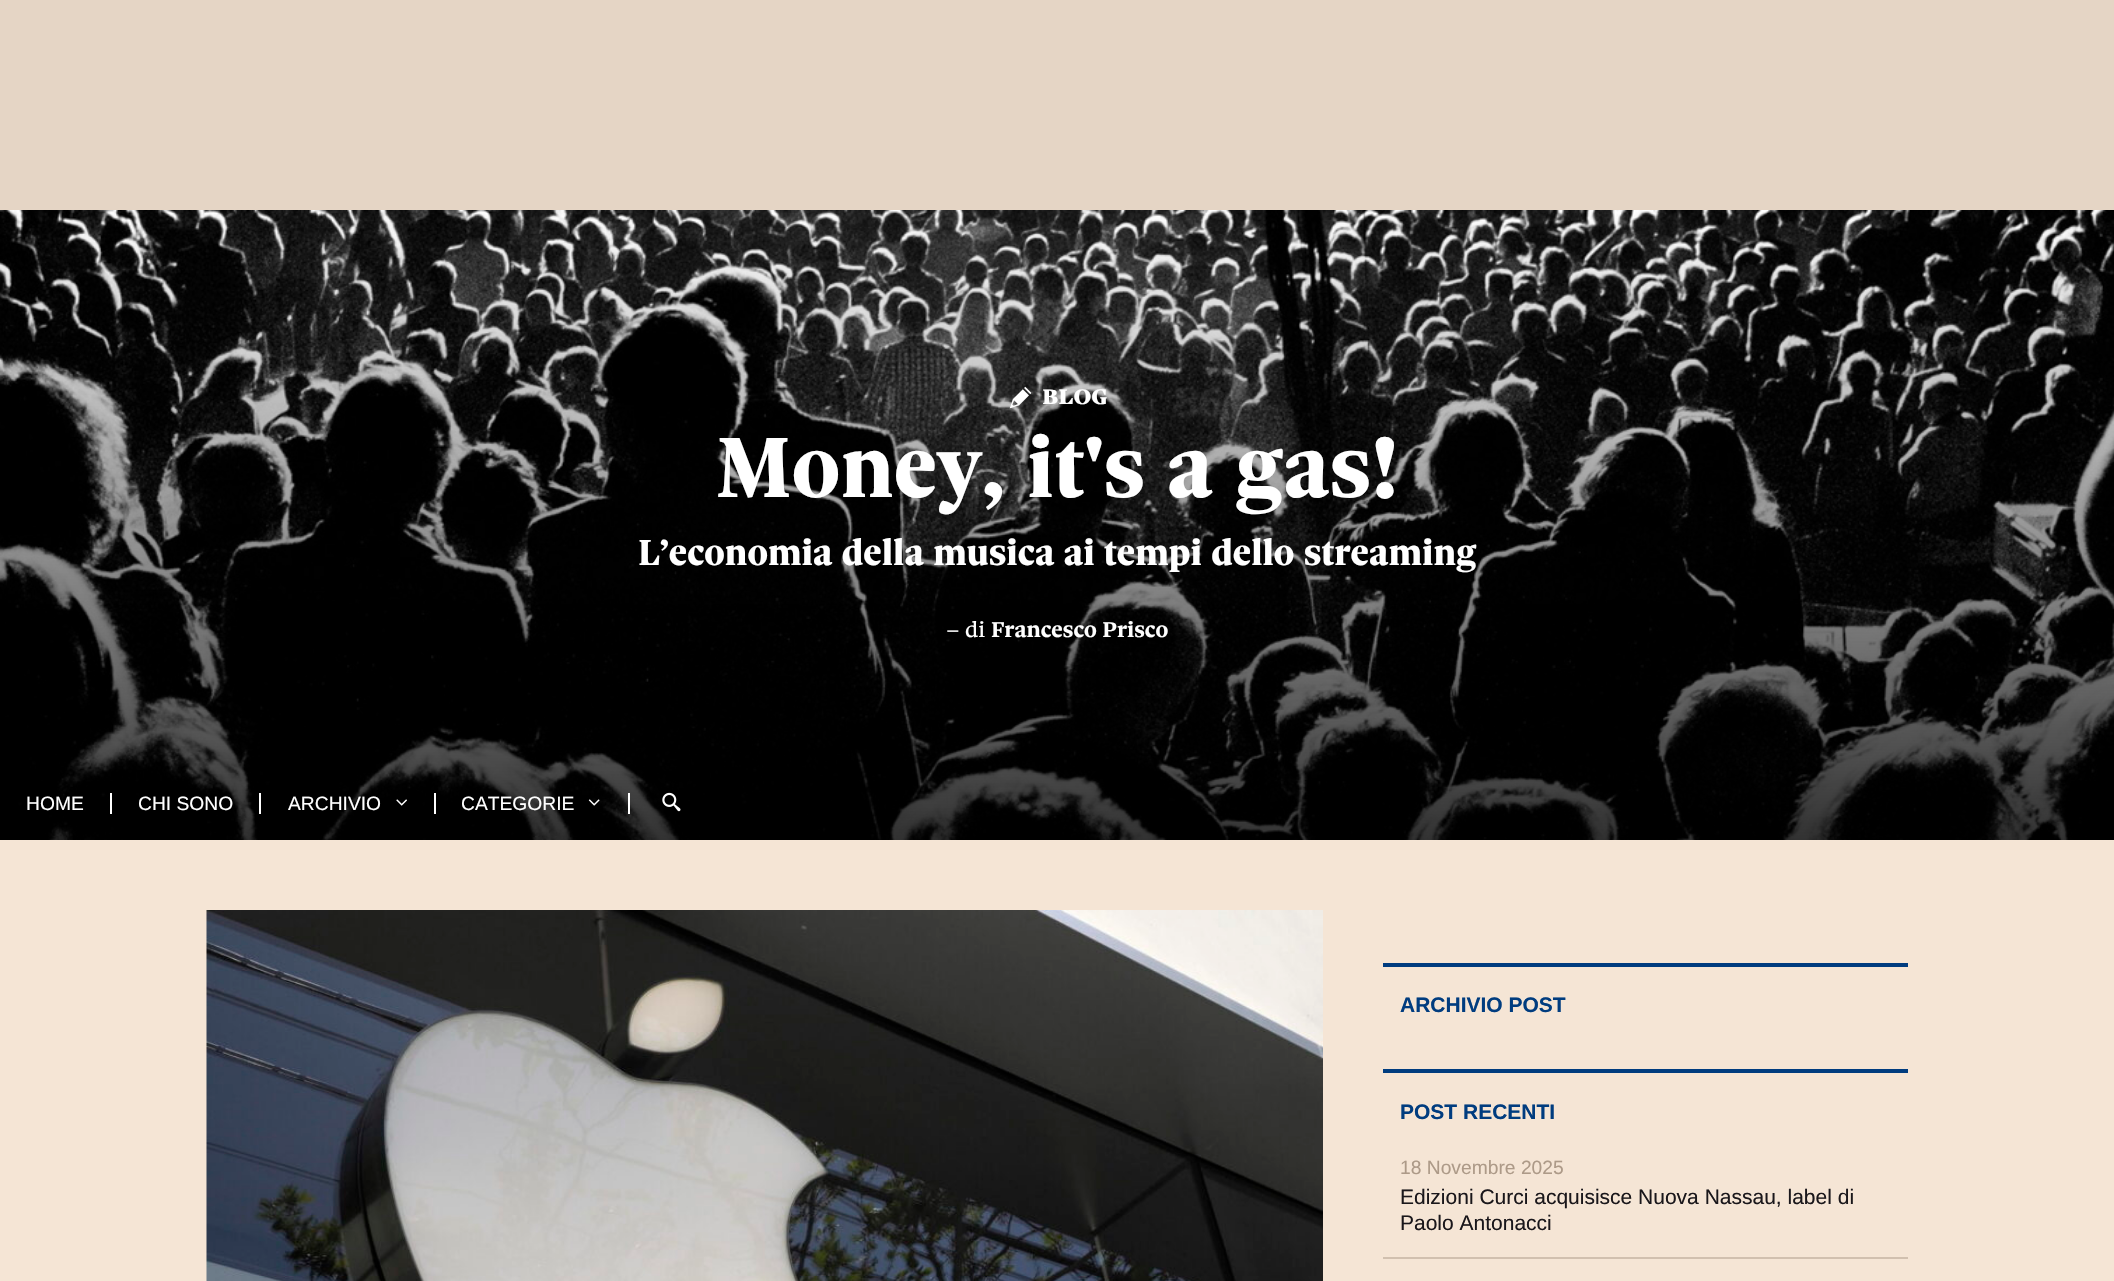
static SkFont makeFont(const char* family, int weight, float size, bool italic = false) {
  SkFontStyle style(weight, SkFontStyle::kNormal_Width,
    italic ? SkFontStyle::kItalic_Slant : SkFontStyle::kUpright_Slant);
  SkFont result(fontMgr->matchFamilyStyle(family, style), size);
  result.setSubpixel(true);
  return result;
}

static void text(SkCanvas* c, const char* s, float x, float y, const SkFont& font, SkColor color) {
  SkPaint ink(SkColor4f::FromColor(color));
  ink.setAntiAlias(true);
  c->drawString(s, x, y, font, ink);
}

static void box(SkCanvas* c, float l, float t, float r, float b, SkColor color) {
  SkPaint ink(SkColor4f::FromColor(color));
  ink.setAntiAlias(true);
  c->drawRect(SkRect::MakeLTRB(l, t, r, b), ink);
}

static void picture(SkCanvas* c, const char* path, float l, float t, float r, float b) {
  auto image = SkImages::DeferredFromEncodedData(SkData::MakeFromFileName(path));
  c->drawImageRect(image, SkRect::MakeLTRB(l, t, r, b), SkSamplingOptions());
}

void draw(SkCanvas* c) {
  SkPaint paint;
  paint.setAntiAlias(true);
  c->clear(0xfff5e5d5);
  box(c, 0, 0, 2114, 210, 0xffe5d5c5);
  picture(c, "img_01.png", 0, 210, 2114, 840);
  picture(c, "img_02.png", 1009, 386, 1032, 409);
  SkFont face1 = makeFont("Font", 700, 28);
  text(c, "blog", 1042, 404, face1, 0xffffffff);
  SkFont face2 = makeFont("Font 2", 700, 91);
  text(c, "Money, it's a gas!", 716, 497, face2, 0xffffffff);
  SkFont face3 = makeFont("Font 2", 700, 38.5f);
  text(c, "L’economia della musica ai tempi dello streaming", 638, 565, face3, 0xffffffff);
  SkFont face4 = makeFont("Font", 400, 22.75f);
  text(c, "– di", 946, 637, face4, 0xffffffff);
  SkFont face5 = makeFont("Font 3", 700, 22.75f);
  text(c, "Francesco Prisco", 991, 637, face5, 0xffffffff);
  box(c, 110, 793, 112, 814, 0xffffffff);
  SkFont face6 = makeFont("Liberation Sans", 400, 19.25f);
  text(c, "HOME", 26, 810, face6, 0xffffffff);
  box(c, 259, 793, 261, 814, 0xffffffff);
  text(c, "CHI SONO", 138, 810, face6, 0xffffffff);
  box(c, 434, 793, 436, 814, 0xffffffff);
  text(c, "ARCHIVIO", 288, 810, face6, 0xffffffff);
  picture(c, "img_03.png", 396, 799, 407, 806);
  box(c, 628, 793, 630, 814, 0xffffffff);
  text(c, "CATEGORIE", 461, 810, face6, 0xffffffff);
  picture(c, "img_04.png", 588, 799, 600, 806);
  picture(c, "img_05.png", 662, 792, 681, 812);
  picture(c, "img_06.png", 206, 910, 1323, 1281);
  box(c, 1383, 963, 1908, 967, 0xff003c7f);
  SkFont face7 = makeFont("Liberation Sans", 700, 21);
  text(c, "ARCHIVIO POST", 1400, 1012, face7, 0xff003c7f);
  box(c, 1383, 1069, 1908, 1073, 0xff003c7f);
  text(c, "POST RECENTI", 1400, 1119, face7, 0xff003c7f);
  box(c, 1383, 1257, 1908, 1259, 0xffd1c0af);
  text(c, "18 Novembre 2025", 1400, 1174, face6, 0xffad9a88);
  SkFont face8 = makeFont("Liberation Sans", 400, 21);
  text(c, "Edizioni Curci acquisisce Nuova Nassau, label di", 1400, 1204, face8, 0xff1a171b);
  text(c, "Paolo Antonacci", 1400, 1230, face8, 0xff1a171b);
}
